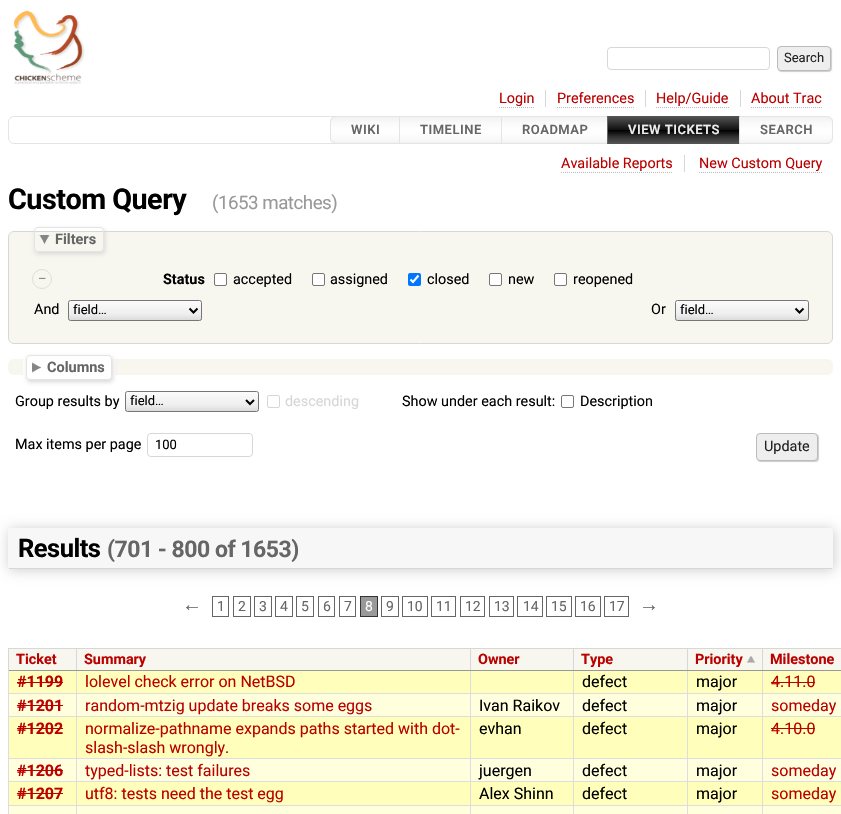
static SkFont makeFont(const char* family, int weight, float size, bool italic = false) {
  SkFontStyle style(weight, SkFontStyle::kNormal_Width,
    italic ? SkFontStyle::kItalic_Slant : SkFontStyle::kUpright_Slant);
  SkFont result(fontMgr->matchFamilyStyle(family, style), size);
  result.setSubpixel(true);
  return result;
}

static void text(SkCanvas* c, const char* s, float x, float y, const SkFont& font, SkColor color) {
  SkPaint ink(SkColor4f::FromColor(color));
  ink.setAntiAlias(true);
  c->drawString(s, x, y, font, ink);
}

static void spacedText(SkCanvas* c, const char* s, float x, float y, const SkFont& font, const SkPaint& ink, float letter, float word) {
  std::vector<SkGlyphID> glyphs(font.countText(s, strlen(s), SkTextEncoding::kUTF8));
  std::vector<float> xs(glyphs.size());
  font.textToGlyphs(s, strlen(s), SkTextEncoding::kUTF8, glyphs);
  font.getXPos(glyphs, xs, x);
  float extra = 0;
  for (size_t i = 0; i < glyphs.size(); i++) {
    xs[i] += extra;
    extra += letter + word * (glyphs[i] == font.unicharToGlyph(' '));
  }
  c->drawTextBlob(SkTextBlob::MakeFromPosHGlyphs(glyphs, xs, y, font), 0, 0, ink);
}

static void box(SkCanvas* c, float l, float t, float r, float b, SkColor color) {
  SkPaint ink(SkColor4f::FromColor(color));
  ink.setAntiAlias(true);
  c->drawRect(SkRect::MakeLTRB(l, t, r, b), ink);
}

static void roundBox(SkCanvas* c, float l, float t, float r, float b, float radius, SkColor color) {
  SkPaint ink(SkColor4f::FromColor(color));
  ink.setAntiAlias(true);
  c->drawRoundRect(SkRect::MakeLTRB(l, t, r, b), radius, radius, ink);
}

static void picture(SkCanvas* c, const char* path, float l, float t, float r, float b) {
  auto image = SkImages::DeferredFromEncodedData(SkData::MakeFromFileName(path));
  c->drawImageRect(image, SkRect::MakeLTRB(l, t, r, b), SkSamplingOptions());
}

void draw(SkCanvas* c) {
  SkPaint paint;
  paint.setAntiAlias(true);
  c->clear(0xffffffff);
  picture(c, "img_01.png", 13, 10, 85, 85);
  paint.setStyle(SkPaint::kStroke_Style);
  paint.setStrokeWidth(1);
  paint.setColor(0xffd7d7d7);
  c->drawRoundRect(SkRect::MakeLTRB(607.5f, 47.5f, 769.5f, 69.5f), 3.5f, 3.5f, paint);
  paint.setStyle(SkPaint::kFill_Style);
  paint.setColor(0xffcccccc);
  paint.setMaskFilter(SkMaskFilter::MakeBlur(kNormal_SkBlurStyle, 0.5f));
  c->drawRoundRect(SkRect::MakeLTRB(778, 47, 832, 72), 4, 4, paint);
  paint.setMaskFilter(nullptr);
  paint.setColor(0xffeeeeee);
  c->drawRoundRect(SkRect::MakeLTRB(777.5f, 46.5f, 830.5f, 70.5f), 3.5f, 3.5f, paint);
  paint.setStyle(SkPaint::kStroke_Style);
  paint.setColor(0xffbbbbbb);
  c->drawRoundRect(SkRect::MakeLTRB(777.5f, 46.5f, 830.5f, 70.5f), 3.5f, 3.5f, paint);
  SkFont face1 = makeFont("Roboto", 400, 13);
  text(c, "Search", 784, 62, face1, 0xff222222);
  box(c, 545, 90, 546, 107, 0xffd7d7d7);
  SkFont face2 = makeFont("Roboto", 400, 14.4f);
  text(c, "Login", 499, 103, face2, 0xffbb0000);
  paint.setPathEffect(SkDashPathEffect::Make({{1, 1}}, 0));
  c->drawPath(SkPathBuilder().moveTo(499, 107.5f).lineTo(534, 107.5f).detach(), paint);
  paint.setPathEffect(nullptr);
  box(c, 645, 90, 646, 107, 0xffd7d7d7);
  text(c, "Preferences", 557, 103, face2, 0xffbb0000);
  paint.setPathEffect(SkDashPathEffect::Make({{1, 1}}, 0));
  c->drawPath(SkPathBuilder().moveTo(557, 107.5f).lineTo(634, 107.5f).detach(), paint);
  paint.setPathEffect(nullptr);
  box(c, 740, 90, 741, 107, 0xffd7d7d7);
  text(c, "Help/Guide", 656, 103, face2, 0xffbb0000);
  paint.setPathEffect(SkDashPathEffect::Make({{1, 1}}, 0));
  c->drawPath(SkPathBuilder().moveTo(656, 107.5f).lineTo(729, 107.5f).detach(), paint);
  paint.setPathEffect(nullptr);
  text(c, "About Trac", 751, 103, face2, 0xffbb0000);
  paint.setPathEffect(SkDashPathEffect::Make({{1, 1}}, 0));
  c->drawPath(SkPathBuilder().moveTo(751, 107.5f).lineTo(822, 107.5f).detach(), paint);
  paint.setPathEffect(nullptr);
  paint.setColor(0xffe4e4e4);
  c->drawRoundRect(SkRect::MakeLTRB(8.5f, 116.5f, 832.5f, 143.5f), 5.5f, 5.5f, paint);
  c->save();
  c->clipPath(SkPathBuilder().moveTo(336, 116).lineTo(401, 116).lineTo(401, 144).lineTo(336, 144).cubicTo(332.5f, 144, 330, 141.5f, 330, 138).lineTo(330, 122).cubicTo(330, 118.5f, 332.5f, 116, 336, 116).close().detach(), true);
  paint.setStyle(SkPaint::kFill_Style);
  {
    const SkColor colors[] = {0xfff2f2f2, 0xfffafafa, 0xfffefefe, 0xffffffff, 0xfffafafa, 0xfff2f2f2};
    const float stops[] = {0, 0.25f, 0.49f, 0.51f, 0.85f, 1};
    const SkPoint ends[] = {{366, 117}, {366, 143}};
    paint.setShader(SkGradientShader::MakeLinear(ends, colors, stops, 6, SkTileMode::kClamp));
    paint.setAlpha(255);
  }
  c->drawRect(SkRect::MakeLTRB(330, 117, 399, 143), paint);
  c->restore();
  paint.setStyle(SkPaint::kStroke_Style);
  paint.setShader(nullptr);
  paint.setColor(0xffe4e4e4);
  c->drawPath(SkPathBuilder().moveTo(336, 116.5f).lineTo(400.5f, 116.5f).lineTo(400.5f, 143.5f).lineTo(336, 143.5f).cubicTo(333, 143.5f, 330.5f, 141, 330.5f, 138).lineTo(330.5f, 122).cubicTo(330.5f, 119, 333, 116.5f, 336, 116.5f).close().detach(), paint);
  SkFont face3 = makeFont("Roboto", 600, 13);
  paint.setStyle(SkPaint::kFill_Style);
  paint.setColor(0xff666666);
  spacedText(c, "WIKI", 351, 134, face3, paint, 0.5f, 0);
  {
    const SkColor colors[] = {0xfff2f2f2, 0xfffafafa, 0xfffefefe, 0xffffffff, 0xfffafafa, 0xfff2f2f2};
    const float stops[] = {0, 0.25f, 0.49f, 0.51f, 0.85f, 1};
    const SkPoint ends[] = {{451, 117}, {451, 143}};
    paint.setShader(SkGradientShader::MakeLinear(ends, colors, stops, 6, SkTileMode::kClamp));
    paint.setAlpha(255);
  }
  c->drawRect(SkRect::MakeLTRB(400, 117, 501, 143), paint);
  paint.setStyle(SkPaint::kStroke_Style);
  paint.setShader(nullptr);
  paint.setColor(0xffe4e4e4);
  c->drawRect(SkRect::MakeLTRB(399.5f, 116.5f, 501.5f, 143.5f), paint);
  paint.setStyle(SkPaint::kFill_Style);
  paint.setColor(0xff666666);
  spacedText(c, "TIMELINE", 420, 134, face3, paint, 0.5f, 0);
  {
    const SkColor colors[] = {0xfff2f2f2, 0xfffafafa, 0xfffefefe, 0xffffffff, 0xfffafafa, 0xfff2f2f2};
    const float stops[] = {0, 0.25f, 0.49f, 0.51f, 0.85f, 1};
    const SkPoint ends[] = {{555, 117}, {555, 143}};
    paint.setShader(SkGradientShader::MakeLinear(ends, colors, stops, 6, SkTileMode::kClamp));
    paint.setAlpha(255);
  }
  c->drawRect(SkRect::MakeLTRB(502, 117, 607, 143), paint);
  paint.setStyle(SkPaint::kStroke_Style);
  paint.setShader(nullptr);
  paint.setColor(0xffe4e4e4);
  c->drawRect(SkRect::MakeLTRB(501.5f, 116.5f, 608.5f, 143.5f), paint);
  paint.setStyle(SkPaint::kFill_Style);
  paint.setColor(0xff666666);
  spacedText(c, "ROADMAP", 522, 134, face3, paint, 0.5f, 0);
  paint.setStyle(SkPaint::kStroke_Style);
  c->drawRect(SkRect::MakeLTRB(607.5f, 116.5f, 739.5f, 143.5f), paint);
  paint.setStyle(SkPaint::kFill_Style);
  {
    const SkColor colors[] = {0xff555555, 0xff333333, 0xff111111, 0xff000000, 0xff333333, 0xff555555};
    const float stops[] = {0, 0.25f, 0.49f, 0.51f, 0.75f, 1};
    const SkPoint ends[] = {{674, 116}, {674, 144}};
    paint.setShader(SkGradientShader::MakeLinear(ends, colors, stops, 6, SkTileMode::kClamp));
    paint.setAlpha(255);
  }
  c->drawRect(SkRect::MakeLTRB(608, 116, 739, 144), paint);
  paint.setShader(nullptr);
  paint.setColor(0xffeeeeee);
  spacedText(c, "VIEW TICKETS", 628, 134, face3, paint, 0.5f, 0);
  c->save();
  c->clipPath(SkPathBuilder().moveTo(739, 116).lineTo(827, 116).cubicTo(830.5f, 116, 833, 118.5f, 833, 122).lineTo(833, 138).cubicTo(833, 141.5f, 830.5f, 144, 827, 144).lineTo(739, 144).close().detach(), true);
  {
    const SkColor colors[] = {0xfff2f2f2, 0xfffafafa, 0xfffefefe, 0xffffffff, 0xfffafafa, 0xfff2f2f2};
    const float stops[] = {0, 0.25f, 0.49f, 0.51f, 0.85f, 1};
    const SkPoint ends[] = {{786, 117}, {786, 143}};
    paint.setShader(SkGradientShader::MakeLinear(ends, colors, stops, 6, SkTileMode::kClamp));
    paint.setAlpha(255);
  }
  c->drawRect(SkRect::MakeLTRB(740, 117, 833, 143), paint);
  c->restore();
  paint.setStyle(SkPaint::kStroke_Style);
  paint.setShader(nullptr);
  paint.setColor(0xffe4e4e4);
  c->drawPath(SkPathBuilder().moveTo(739.5f, 116.5f).lineTo(827, 116.5f).cubicTo(830, 116.5f, 832.5f, 119, 832.5f, 122).lineTo(832.5f, 138).cubicTo(832.5f, 141, 830, 143.5f, 827, 143.5f).lineTo(739.5f, 143.5f).close().detach(), paint);
  paint.setStyle(SkPaint::kFill_Style);
  paint.setColor(0xff666666);
  spacedText(c, "SEARCH", 760, 134, face3, paint, 0.5f, 0);
  box(c, 684, 155, 685, 172, 0xffd7d7d7);
  text(c, "Available Reports", 561, 168, face2, 0xffbb0000);
  paint.setStyle(SkPaint::kStroke_Style);
  paint.setColor(0xffbbbbbb);
  paint.setPathEffect(SkDashPathEffect::Make({{1, 1}}, 0));
  c->drawPath(SkPathBuilder().moveTo(561, 172.5f).lineTo(673, 172.5f).detach(), paint);
  paint.setPathEffect(nullptr);
  text(c, "New Custom Query", 699, 168, face2, 0xffbb0000);
  paint.setPathEffect(SkDashPathEffect::Make({{1, 1}}, 0));
  c->drawPath(SkPathBuilder().moveTo(699, 172.5f).lineTo(822, 172.5f).detach(), paint);
  paint.setPathEffect(nullptr);
  SkFont face4 = makeFont("Roboto", 700, 28.75f);
  paint.setStyle(SkPaint::kFill_Style);
  paint.setColor(0xff000000);
  spacedText(c, "Custom Query", 8, 209, face4, paint, -0.5f, 0);
  SkFont face5 = makeFont("Roboto", 400, 18.75f);
  paint.setColor(0xff999999);
  spacedText(c, "(1653 matches)", 212, 209, face5, paint, -0.5f, 0);
  paint.setColor(0xfff7f7f0);
  c->drawRoundRect(SkRect::MakeLTRB(8.5f, 231.5f, 832.5f, 343.5f), 5.5f, 5.5f, paint);
  paint.setStyle(SkPaint::kStroke_Style);
  paint.setColor(0xffd7d7d7);
  c->drawRoundRect(SkRect::MakeLTRB(8.5f, 231.5f, 832.5f, 343.5f), 5.5f, 5.5f, paint);
  c->save();
  c->clipPath(SkPathBuilder(SkPathFillType::kEvenOdd).moveTo(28, 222).lineTo(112, 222).lineTo(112, 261).lineTo(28, 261).close().moveTo(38, 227).lineTo(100, 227).cubicTo(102, 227, 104, 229, 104, 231).lineTo(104, 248).cubicTo(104, 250, 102, 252, 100, 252).lineTo(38, 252).cubicTo(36, 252, 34, 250, 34, 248).lineTo(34, 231).cubicTo(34, 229, 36, 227, 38, 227).close().detach(), true);
  paint.setStyle(SkPaint::kFill_Style);
  paint.setMaskFilter(SkMaskFilter::MakeBlur(kNormal_SkBlurStyle, 2));
  c->drawRoundRect(SkRect::MakeLTRB(35, 229, 105, 254), 4, 4, paint);
  paint.setMaskFilter(nullptr);
  c->restore();
  picture(c, "img_02.png", 39, 235, 50, 244);
  paint.setStyle(SkPaint::kStroke_Style);
  paint.setColor(0xffe4e4e4);
  c->drawRoundRect(SkRect::MakeLTRB(34.5f, 227.5f, 103.5f, 251.5f), 3.5f, 3.5f, paint);
  SkFont face6 = makeFont("Roboto", 700, 14.5f);
  text(c, "Filters", 55, 244, face6, 0xff666666);
  paint.setColor(0xffdddddd);
  c->drawCircle(42, 279, 9.5f, paint);
  text(c, "–", 38, 283, face1, 0xff808080);
  SkFont face7 = makeFont("Roboto", 700, 14.4f);
  text(c, "Status", 163, 284, face7, 0xff000000);
  paint.setStyle(SkPaint::kFill_Style);
  paint.setColor(0xffffffff);
  c->drawRoundRect(SkRect::MakeLTRB(214.5f, 273.5f, 226.5f, 285.5f), 1.5f, 1.5f, paint);
  paint.setStyle(SkPaint::kStroke_Style);
  paint.setColor(0xff767676);
  c->drawRoundRect(SkRect::MakeLTRB(214.5f, 273.5f, 226.5f, 285.5f), 1.5f, 1.5f, paint);
  text(c, "accepted", 233, 284, face2, 0xff000000);
  paint.setStyle(SkPaint::kFill_Style);
  paint.setColor(0xffffffff);
  c->drawRoundRect(SkRect::MakeLTRB(312.5f, 273.5f, 324.5f, 285.5f), 1.5f, 1.5f, paint);
  paint.setStyle(SkPaint::kStroke_Style);
  paint.setColor(0xff767676);
  c->drawRoundRect(SkRect::MakeLTRB(312.5f, 273.5f, 324.5f, 285.5f), 1.5f, 1.5f, paint);
  text(c, "assigned", 330, 284, face2, 0xff000000);
  roundBox(c, 408, 273, 421, 286, 2, 0xff0075ff);
  paint.setStrokeWidth(2.1f);
  paint.setColor(0xffffffff);
  c->drawPath(SkPathBuilder().moveTo(410.5f, 279.5f).lineTo(413, 282).lineTo(418.5f, 275.5f).detach(), paint);
  text(c, "closed", 427, 284, face2, 0xff000000);
  paint.setStyle(SkPaint::kFill_Style);
  c->drawRoundRect(SkRect::MakeLTRB(489.5f, 273.5f, 501.5f, 285.5f), 1.5f, 1.5f, paint);
  paint.setStyle(SkPaint::kStroke_Style);
  paint.setStrokeWidth(1);
  paint.setColor(0xff767676);
  c->drawRoundRect(SkRect::MakeLTRB(489.5f, 273.5f, 501.5f, 285.5f), 1.5f, 1.5f, paint);
  text(c, "new", 508, 284, face2, 0xff000000);
  paint.setStyle(SkPaint::kFill_Style);
  paint.setColor(0xffffffff);
  c->drawRoundRect(SkRect::MakeLTRB(554.5f, 273.5f, 566.5f, 285.5f), 1.5f, 1.5f, paint);
  paint.setStyle(SkPaint::kStroke_Style);
  paint.setColor(0xff767676);
  c->drawRoundRect(SkRect::MakeLTRB(554.5f, 273.5f, 566.5f, 285.5f), 1.5f, 1.5f, paint);
  text(c, "reopened", 573, 284, face2, 0xff000000);
  text(c, "And", 34, 314, face2, 0xff000000);
  c->save();
  c->clipPath(SkPathBuilder().moveTo(70.5f, 300).lineTo(199.5f, 300).cubicTo(201, 300, 202, 301, 202, 302.5f).lineTo(202, 318.5f).cubicTo(202, 320, 201, 321, 199.5f, 321).lineTo(70.5f, 321).cubicTo(69, 321, 68, 320, 68, 318.5f).lineTo(68, 302.5f).cubicTo(68, 301, 69, 300, 70.5f, 300).close().detach(), true);
  paint.setStyle(SkPaint::kFill_Style);
  {
    const SkColor colors[] = {0xffdbdbdb, 0xffeeeeee, 0xfffbfbfb};
    const float stops[] = {0, 0.3f, 1};
    const SkPoint ends[] = {{135, 320}, {135, 301}};
    paint.setShader(SkGradientShader::MakeLinear(ends, colors, stops, 3, SkTileMode::kClamp));
    paint.setAlpha(255);
  }
  c->drawRect(SkRect::MakeLTRB(68, 301, 202, 320), paint);
  c->restore();
  paint.setStyle(SkPaint::kStroke_Style);
  paint.setShader(nullptr);
  paint.setColor(0xff767676);
  c->drawRoundRect(SkRect::MakeLTRB(68.5f, 300.5f, 201.5f, 320.5f), 2, 2, paint);
  paint.setStrokeWidth(2);
  paint.setColor(0xff000000);
  c->drawPath(SkPathBuilder().moveTo(189.5f, 308.5f).lineTo(193.5f, 312.5f).lineTo(197.5f, 308.5f).detach(), paint);
  text(c, "field…", 73, 314, face1, 0xff000000);
  text(c, "Or", 651, 314, face2, 0xff000000);
  c->save();
  c->clipPath(SkPathBuilder().moveTo(677.5f, 300).lineTo(806.5f, 300).cubicTo(808, 300, 809, 301, 809, 302.5f).lineTo(809, 318.5f).cubicTo(809, 320, 808, 321, 806.5f, 321).lineTo(677.5f, 321).cubicTo(676, 321, 675, 320, 675, 318.5f).lineTo(675, 302.5f).cubicTo(675, 301, 676, 300, 677.5f, 300).close().detach(), true);
  paint.setStyle(SkPaint::kFill_Style);
  {
    const SkColor colors[] = {0xffdbdbdb, 0xffeeeeee, 0xfffbfbfb};
    const float stops[] = {0, 0.3f, 1};
    const SkPoint ends[] = {{742, 320}, {742, 301}};
    paint.setShader(SkGradientShader::MakeLinear(ends, colors, stops, 3, SkTileMode::kClamp));
    paint.setAlpha(255);
  }
  c->drawRect(SkRect::MakeLTRB(675, 301, 809, 320), paint);
  c->restore();
  paint.setStyle(SkPaint::kStroke_Style);
  paint.setStrokeWidth(1);
  paint.setShader(nullptr);
  paint.setColor(0xff767676);
  c->drawRoundRect(SkRect::MakeLTRB(675.5f, 300.5f, 808.5f, 320.5f), 2, 2, paint);
  paint.setStrokeWidth(2);
  paint.setColor(0xff000000);
  c->drawPath(SkPathBuilder().moveTo(795.5f, 308.5f).lineTo(799.5f, 312.5f).lineTo(803.5f, 308.5f).detach(), paint);
  text(c, "field…", 680, 314, face1, 0xff000000);
  roundBox(c, 8, 359, 833, 375, 6, 0xfff7f7f0);
  box(c, 23, 359, 115, 375, 0xffffffff);
  c->save();
  c->clipPath(SkPathBuilder(SkPathFillType::kEvenOdd).moveTo(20, 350).lineTo(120, 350).lineTo(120, 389).lineTo(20, 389).close().moveTo(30, 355).lineTo(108, 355).cubicTo(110, 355, 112, 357, 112, 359).lineTo(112, 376).cubicTo(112, 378, 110, 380, 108, 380).lineTo(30, 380).cubicTo(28, 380, 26, 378, 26, 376).lineTo(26, 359).cubicTo(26, 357, 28, 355, 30, 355).close().detach(), true);
  paint.setStyle(SkPaint::kFill_Style);
  paint.setColor(0xffd7d7d7);
  paint.setMaskFilter(SkMaskFilter::MakeBlur(kNormal_SkBlurStyle, 2));
  c->drawRoundRect(SkRect::MakeLTRB(27, 357, 113, 382), 4, 4, paint);
  paint.setMaskFilter(nullptr);
  c->restore();
  picture(c, "img_03.png", 32, 362, 41, 373);
  paint.setStyle(SkPaint::kStroke_Style);
  paint.setStrokeWidth(1);
  paint.setColor(0xffe4e4e4);
  c->drawRoundRect(SkRect::MakeLTRB(26.5f, 355.5f, 111.5f, 379.5f), 3.5f, 3.5f, paint);
  text(c, "Columns", 47, 372, face6, 0xff666666);
  text(c, "Group results by", 15, 406, face2, 0xff000000);
  c->save();
  c->clipPath(SkPathBuilder().moveTo(127.5f, 391).lineTo(256.5f, 391).cubicTo(258, 391, 259, 392, 259, 393.5f).lineTo(259, 409.5f).cubicTo(259, 411, 258, 412, 256.5f, 412).lineTo(127.5f, 412).cubicTo(126, 412, 125, 411, 125, 409.5f).lineTo(125, 393.5f).cubicTo(125, 392, 126, 391, 127.5f, 391).close().detach(), true);
  paint.setStyle(SkPaint::kFill_Style);
  {
    const SkColor colors[] = {0xffdbdbdb, 0xffeeeeee, 0xfffbfbfb};
    const float stops[] = {0, 0.3f, 1};
    const SkPoint ends[] = {{192, 411}, {192, 392}};
    paint.setShader(SkGradientShader::MakeLinear(ends, colors, stops, 3, SkTileMode::kClamp));
    paint.setAlpha(255);
  }
  c->drawRect(SkRect::MakeLTRB(125, 392, 259, 411), paint);
  c->restore();
  paint.setStyle(SkPaint::kStroke_Style);
  paint.setShader(nullptr);
  paint.setColor(0xff767676);
  c->drawRoundRect(SkRect::MakeLTRB(125.5f, 391.5f, 258.5f, 411.5f), 2, 2, paint);
  paint.setStrokeWidth(2);
  paint.setColor(0xff000000);
  c->drawPath(SkPathBuilder().moveTo(246, 400).lineTo(250, 404).lineTo(254, 400).detach(), paint);
  text(c, "field…", 130, 405, face1, 0xff000000);
  paint.setStrokeWidth(1);
  paint.setColor(0xffd6d6d6);
  c->drawRoundRect(SkRect::MakeLTRB(267.5f, 395.5f, 279.5f, 407.5f), 1.5f, 1.5f, paint);
  text(c, "descending", 285, 406, face2, 0xffd7d7d7);
  text(c, "Show under each result:", 402, 406, face2, 0xff000000);
  paint.setColor(0xff767676);
  c->drawRoundRect(SkRect::MakeLTRB(561.5f, 395.5f, 573.5f, 407.5f), 1.5f, 1.5f, paint);
  text(c, "Description", 580, 406, face2, 0xff000000);
  text(c, "Max items per page", 15, 449, face2, 0xff000000);
  paint.setColor(0xffd7d7d7);
  c->drawRoundRect(SkRect::MakeLTRB(147.5f, 433.5f, 252.5f, 456.5f), 3.5f, 3.5f, paint);
  text(c, "100", 155, 449, face1, 0xff000000);
  paint.setStyle(SkPaint::kFill_Style);
  paint.setColor(0xffcccccc);
  paint.setMaskFilter(SkMaskFilter::MakeBlur(kNormal_SkBlurStyle, 0.5f));
  c->drawRoundRect(SkRect::MakeLTRB(757, 434, 819, 462), 4, 4, paint);
  paint.setMaskFilter(nullptr);
  paint.setColor(0xffeeeeee);
  c->drawRoundRect(SkRect::MakeLTRB(756.5f, 433.5f, 817.5f, 460.5f), 3.5f, 3.5f, paint);
  paint.setStyle(SkPaint::kStroke_Style);
  paint.setColor(0xffbbbbbb);
  c->drawRoundRect(SkRect::MakeLTRB(756.5f, 433.5f, 817.5f, 460.5f), 3.5f, 3.5f, paint);
  text(c, "Update", 764, 451, face2, 0xff222222);
  paint.setStyle(SkPaint::kFill_Style);
  paint.setColor(0xffcccccc);
  paint.setMaskFilter(SkMaskFilter::MakeBlur(kNormal_SkBlurStyle, 6.5f));
  c->drawRoundRect(SkRect::MakeLTRB(9, 529, 834, 570), 2.5f, 2.5f, paint);
  paint.setMaskFilter(nullptr);
  roundBox(c, 8, 528, 833, 569, 2.5f, 0xfff7f7f7);
  box(c, 9, 568, 832, 569, 0xffd7d7d7);
  SkFont face8 = makeFont("Roboto", 700, 25.5f);
  paint.setColor(0xff000000);
  spacedText(c, "Results", 18, 557, face8, paint, -0.5f, 0);
  SkFont face9 = makeFont("Roboto", 700, 23);
  paint.setColor(0xff666666);
  spacedText(c, "(701 - 800 of 1653)", 107, 557, face9, paint, -0.5f, 0);
  SkFont face10 = makeFont("Liberation Sans", 700, 20);
  text(c, "←", 182, 611, face10, 0xff666666);
  paint.setStyle(SkPaint::kStroke_Style);
  c->drawRect(SkRect::MakeLTRB(212.5f, 596.5f, 228.5f, 616.5f), paint);
  SkFont face11 = makeFont("Roboto", 400, 14);
  text(c, "1", 217, 611, face11, 0xff666666);
  c->drawRect(SkRect::MakeLTRB(233.5f, 596.5f, 250.5f, 616.5f), paint);
  text(c, "2", 238, 611, face11, 0xff666666);
  c->drawRect(SkRect::MakeLTRB(254.5f, 596.5f, 271.5f, 616.5f), paint);
  text(c, "3", 259, 611, face11, 0xff666666);
  c->drawRect(SkRect::MakeLTRB(275.5f, 596.5f, 292.5f, 616.5f), paint);
  text(c, "4", 280, 611, face11, 0xff666666);
  c->drawRect(SkRect::MakeLTRB(296.5f, 596.5f, 313.5f, 616.5f), paint);
  text(c, "5", 301, 611, face11, 0xff666666);
  c->drawRect(SkRect::MakeLTRB(318.5f, 596.5f, 334.5f, 616.5f), paint);
  text(c, "6", 323, 611, face11, 0xff666666);
  c->drawRect(SkRect::MakeLTRB(339.5f, 596.5f, 355.5f, 616.5f), paint);
  text(c, "7", 344, 611, face11, 0xff666666);
  paint.setStyle(SkPaint::kFill_Style);
  paint.setColor(0xff999999);
  c->drawRect(SkRect::MakeLTRB(360.5f, 596.5f, 377.5f, 616.5f), paint);
  paint.setStyle(SkPaint::kStroke_Style);
  paint.setColor(0xff333333);
  c->drawRect(SkRect::MakeLTRB(360.5f, 596.5f, 377.5f, 616.5f), paint);
  text(c, "8", 365, 611, face11, 0xffffffff);
  paint.setColor(0xff666666);
  c->drawRect(SkRect::MakeLTRB(381.5f, 596.5f, 398.5f, 616.5f), paint);
  text(c, "9", 386, 611, face11, 0xff666666);
  c->drawRect(SkRect::MakeLTRB(402.5f, 596.5f, 427.5f, 616.5f), paint);
  text(c, "10", 407, 611, face11, 0xff666666);
  c->drawRect(SkRect::MakeLTRB(431.5f, 596.5f, 455.5f, 616.5f), paint);
  text(c, "11", 436, 611, face11, 0xff666666);
  c->drawRect(SkRect::MakeLTRB(460.5f, 596.5f, 484.5f, 616.5f), paint);
  text(c, "12", 465, 611, face11, 0xff666666);
  c->drawRect(SkRect::MakeLTRB(489.5f, 596.5f, 513.5f, 616.5f), paint);
  text(c, "13", 494, 611, face11, 0xff666666);
  c->drawRect(SkRect::MakeLTRB(517.5f, 596.5f, 542.5f, 616.5f), paint);
  text(c, "14", 523, 611, face11, 0xff666666);
  c->drawRect(SkRect::MakeLTRB(546.5f, 596.5f, 571.5f, 616.5f), paint);
  text(c, "15", 551, 611, face11, 0xff666666);
  c->drawRect(SkRect::MakeLTRB(575.5f, 596.5f, 600.5f, 616.5f), paint);
  text(c, "16", 580, 611, face11, 0xff666666);
  c->drawRect(SkRect::MakeLTRB(604.5f, 596.5f, 628.5f, 616.5f), paint);
  text(c, "17", 609, 611, face11, 0xff666666);
  text(c, "→", 639, 611, face10, 0xff666666);
  box(c, 9, 649, 841, 670, 0xfff7f7f0);
  box(c, 762, 648, 841, 649, 0xffd7d7d7);
  box(c, 9, 671, 841, 693, 0xffffffbb);
  box(c, 762, 693, 841, 694, 0xffdddddd);
  box(c, 9, 694, 841, 716, 0xffffffdd);
  box(c, 762, 716, 841, 717, 0xffdddddd);
  box(c, 9, 717, 841, 758, 0xffffffbb);
  box(c, 762, 758, 841, 759, 0xffdddddd);
  box(c, 9, 759, 841, 781, 0xffffffdd);
  box(c, 762, 781, 841, 782, 0xffdddddd);
  box(c, 9, 782, 841, 805, 0xffffffbb);
  box(c, 762, 805, 841, 806, 0xffdddddd);
  box(c, 9, 806, 841, 814, 0xffffffdd);
  box(c, 762, 805, 763, 814, 0xffdddddd);
  box(c, 687, 805, 763, 806, 0xffdddddd);
  box(c, 762, 781, 763, 806, 0xffdddddd);
  box(c, 687, 781, 763, 782, 0xffdddddd);
  box(c, 762, 758, 763, 782, 0xffdddddd);
  box(c, 687, 758, 763, 759, 0xffdddddd);
  box(c, 762, 716, 763, 759, 0xffdddddd);
  box(c, 687, 716, 763, 717, 0xffdddddd);
  box(c, 762, 693, 763, 717, 0xffdddddd);
  box(c, 687, 693, 763, 694, 0xffdddddd);
  box(c, 762, 670, 763, 694, 0xffdddddd);
  box(c, 762, 670, 841, 671, 0xff999999);
  box(c, 762, 648, 763, 671, 0xffd7d7d7);
  box(c, 687, 648, 763, 649, 0xffd7d7d7);
  box(c, 687, 805, 688, 814, 0xffdddddd);
  box(c, 573, 805, 688, 806, 0xffdddddd);
  box(c, 687, 781, 688, 806, 0xffdddddd);
  box(c, 573, 781, 688, 782, 0xffdddddd);
  box(c, 687, 758, 688, 782, 0xffdddddd);
  box(c, 573, 758, 688, 759, 0xffdddddd);
  box(c, 687, 716, 688, 759, 0xffdddddd);
  box(c, 573, 716, 688, 717, 0xffdddddd);
  box(c, 687, 693, 688, 717, 0xffdddddd);
  box(c, 573, 693, 688, 694, 0xffdddddd);
  box(c, 687, 670, 688, 694, 0xffdddddd);
  box(c, 687, 670, 763, 671, 0xff999999);
  box(c, 687, 648, 688, 671, 0xffd7d7d7);
  box(c, 573, 648, 688, 649, 0xffd7d7d7);
  box(c, 573, 805, 574, 814, 0xffdddddd);
  box(c, 470, 805, 574, 806, 0xffdddddd);
  box(c, 573, 781, 574, 806, 0xffdddddd);
  box(c, 470, 781, 574, 782, 0xffdddddd);
  box(c, 573, 758, 574, 782, 0xffdddddd);
  box(c, 470, 758, 574, 759, 0xffdddddd);
  box(c, 573, 716, 574, 759, 0xffdddddd);
  box(c, 470, 716, 574, 717, 0xffdddddd);
  box(c, 573, 693, 574, 717, 0xffdddddd);
  box(c, 470, 693, 574, 694, 0xffdddddd);
  box(c, 573, 670, 574, 694, 0xffdddddd);
  box(c, 573, 670, 688, 671, 0xff999999);
  box(c, 573, 648, 574, 671, 0xffd7d7d7);
  box(c, 470, 648, 574, 649, 0xffd7d7d7);
  box(c, 470, 805, 471, 814, 0xffdddddd);
  box(c, 76, 805, 471, 806, 0xffdddddd);
  box(c, 470, 781, 471, 806, 0xffdddddd);
  box(c, 76, 781, 471, 782, 0xffdddddd);
  box(c, 470, 758, 471, 782, 0xffdddddd);
  box(c, 76, 758, 471, 759, 0xffdddddd);
  box(c, 470, 716, 471, 759, 0xffdddddd);
  box(c, 76, 716, 471, 717, 0xffdddddd);
  box(c, 470, 693, 471, 717, 0xffdddddd);
  box(c, 76, 693, 471, 694, 0xffdddddd);
  box(c, 470, 670, 471, 694, 0xffdddddd);
  box(c, 470, 670, 574, 671, 0xff999999);
  box(c, 470, 648, 471, 671, 0xffd7d7d7);
  box(c, 76, 648, 471, 649, 0xffd7d7d7);
  box(c, 76, 805, 77, 814, 0xffdddddd);
  box(c, 8, 805, 77, 806, 0xffdddddd);
  box(c, 76, 781, 77, 806, 0xffdddddd);
  box(c, 8, 781, 77, 782, 0xffdddddd);
  box(c, 76, 758, 77, 782, 0xffdddddd);
  box(c, 8, 758, 77, 759, 0xffdddddd);
  box(c, 76, 716, 77, 759, 0xffdddddd);
  box(c, 8, 716, 77, 717, 0xffdddddd);
  box(c, 76, 693, 77, 717, 0xffdddddd);
  box(c, 8, 693, 77, 694, 0xffdddddd);
  box(c, 76, 670, 77, 694, 0xffdddddd);
  box(c, 76, 670, 471, 671, 0xff999999);
  box(c, 76, 648, 77, 671, 0xffd7d7d7);
  box(c, 8, 648, 77, 649, 0xffd7d7d7);
  box(c, 8, 805, 9, 814, 0xffdddddd);
  box(c, 8, 781, 9, 806, 0xffdddddd);
  box(c, 8, 758, 9, 782, 0xffdddddd);
  box(c, 8, 716, 9, 759, 0xffdddddd);
  box(c, 8, 670, 9, 717, 0xffdddddd);
  box(c, 8, 670, 77, 671, 0xff999999);
  box(c, 8, 648, 9, 671, 0xffd7d7d7);
  text(c, "Ticket", 16, 664, face7, 0xffbb0000);
  text(c, "Summary", 84, 664, face7, 0xffbb0000);
  text(c, "Owner", 478, 664, face7, 0xffbb0000);
  text(c, "Type", 581, 664, face7, 0xffbb0000);
  text(c, "Priority", 695, 664, face7, 0xffbb0000);
  picture(c, "img_04.png", 747, 656, 755, 663);
  text(c, "Milestone", 770, 664, face7, 0xffbb0000);
  SkFont face12 = makeFont("Roboto", 700, 16);
  text(c, "#1199", 17, 687, face12, 0xffbb0000);
  box(c, 17, 682, 63, 683, 0xffbb0000);
  SkFont face13 = makeFont("Roboto", 400, 16);
  text(c, "lolevel check error on NetBSD", 85, 687, face13, 0xffbb0000);
  text(c, "defect", 582, 687, face13, 0xff000000);
  text(c, "major", 696, 687, face13, 0xff000000);
  text(c, "4.11.0", 771, 687, face13, 0xffbb0000);
  box(c, 771, 682, 815, 683, 0xffbb0000);
  text(c, "#1201", 17, 711, face12, 0xffbb0000);
  box(c, 17, 705, 63, 706, 0xffbb0000);
  text(c, "random-mtzig update breaks some eggs", 85, 711, face13, 0xffbb0000);
  text(c, "Ivan Raikov", 479, 711, face13, 0xff000000);
  text(c, "defect", 582, 711, face13, 0xff000000);
  text(c, "major", 696, 711, face13, 0xff000000);
  text(c, "someday", 771, 711, face13, 0xffbb0000);
  text(c, "#1202", 17, 734, face12, 0xffbb0000);
  box(c, 17, 728, 63, 729, 0xffbb0000);
  text(c, "normalize-pathname expands paths started with dot-", 85, 734, face13, 0xffbb0000);
  text(c, "slash-slash wrongly.", 85, 753, face13, 0xffbb0000);
  text(c, "evhan", 479, 734, face13, 0xff000000);
  text(c, "defect", 582, 734, face13, 0xff000000);
  text(c, "major", 696, 734, face13, 0xff000000);
  text(c, "4.10.0", 771, 734, face13, 0xffbb0000);
  box(c, 771, 728, 815, 729, 0xffbb0000);
  text(c, "#1206", 17, 776, face12, 0xffbb0000);
  box(c, 17, 770, 63, 771, 0xffbb0000);
  text(c, "typed-lists: test failures", 85, 776, face13, 0xffbb0000);
  text(c, "juergen", 479, 776, face13, 0xff000000);
  text(c, "defect", 582, 776, face13, 0xff000000);
  text(c, "major", 696, 776, face13, 0xff000000);
  text(c, "someday", 771, 776, face13, 0xffbb0000);
  text(c, "#1207", 17, 799, face12, 0xffbb0000);
  box(c, 17, 793, 63, 794, 0xffbb0000);
  text(c, "utf8: tests need the test egg", 85, 799, face13, 0xffbb0000);
  text(c, "Alex Shinn", 479, 799, face13, 0xff000000);
  text(c, "defect", 582, 799, face13, 0xff000000);
  text(c, "major", 696, 799, face13, 0xff000000);
  text(c, "someday", 771, 799, face13, 0xffbb0000);
}
